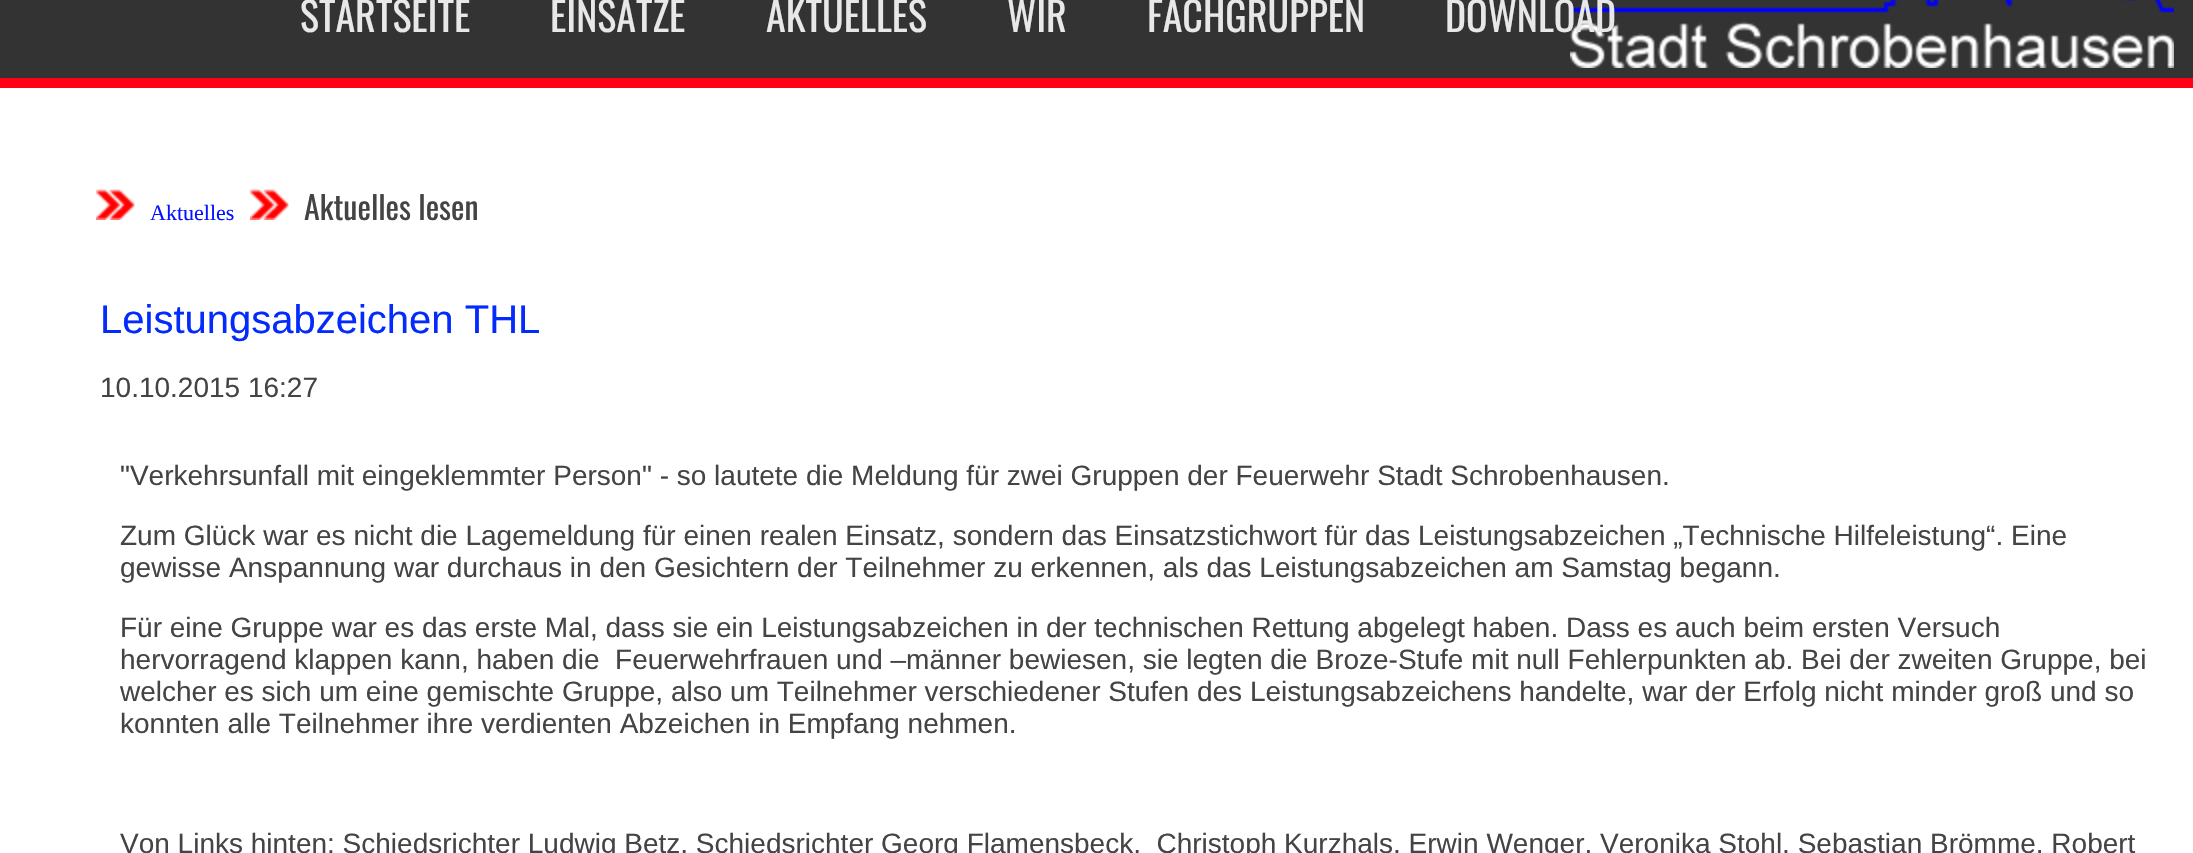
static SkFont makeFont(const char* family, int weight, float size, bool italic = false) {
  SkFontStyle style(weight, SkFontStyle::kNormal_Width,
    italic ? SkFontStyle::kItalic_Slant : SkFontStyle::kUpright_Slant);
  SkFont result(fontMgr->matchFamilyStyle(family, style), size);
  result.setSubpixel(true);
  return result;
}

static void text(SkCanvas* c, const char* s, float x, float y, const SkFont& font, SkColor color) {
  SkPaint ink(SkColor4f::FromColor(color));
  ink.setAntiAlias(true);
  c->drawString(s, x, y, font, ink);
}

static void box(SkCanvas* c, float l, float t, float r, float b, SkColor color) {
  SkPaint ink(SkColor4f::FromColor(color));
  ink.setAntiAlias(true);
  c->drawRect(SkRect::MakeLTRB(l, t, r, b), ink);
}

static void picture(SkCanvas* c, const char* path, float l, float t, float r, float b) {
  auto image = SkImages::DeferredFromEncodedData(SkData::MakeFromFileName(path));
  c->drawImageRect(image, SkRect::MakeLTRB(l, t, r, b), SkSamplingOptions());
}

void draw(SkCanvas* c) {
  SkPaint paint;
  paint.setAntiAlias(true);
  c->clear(0xffffffff);
  box(c, 0, 0, 2193, 78, 0xff333333);
  box(c, 0, 78, 2193, 88, 0xfffc0317);
  picture(c, "img_01.png", 1570, 0, 2174, 68);
  SkFont face1 = makeFont("Oswald", 400, 40);
  text(c, "STARTSEITE", 300, 32, face1, 0xffe8e8e8);
  text(c, "EINSÄTZE", 550, 32, face1, 0xffe8e8e8);
  text(c, "AKTUELLES", 766, 32, face1, 0xffe8e8e8);
  text(c, "WIR", 1007, 32, face1, 0xffe8e8e8);
  text(c, "FACHGRUPPEN", 1147, 32, face1, 0xffe8e8e8);
  text(c, "DOWNLOAD", 1445, 32, face1, 0xffe8e8e8);
  picture(c, "img_02.png", 96, 189, 135, 220);
  SkFont face2 = makeFont("Liberation Serif", 400, 22);
  text(c, "Aktuelles", 150, 220, face2, 0xff0313ff);
  picture(c, "img_02.png", 250, 189, 289, 220);
  SkFont face3 = makeFont("Oswald", 400, 32);
  text(c, "Aktuelles lesen", 304, 220, face3, 0xff444444);
  SkFont face4 = makeFont("Liberation Sans", 400, 40);
  text(c, "Leistungsabzeichen THL", 100, 333, face4, 0xff032cfc);
  SkFont face5 = makeFont("Liberation Sans", 400, 28);
  text(c, "10.10.2015 16:27", 100, 397, face5, 0xff444444);
  text(c, "\"Verkehrsunfall mit eingeklemmter Person\" - so lautete die Meldung für zwei Gruppen der Feuerwehr Stadt Schrobenhausen.", 120, 485, face5, 0xff444444);
  text(c, "Zum Glück war es nicht die Lagemeldung für einen realen Einsatz, sondern das Einsatzstichwort für das Leistungsabzeichen „Technische Hilfeleistung“. Eine", 120, 545, face5, 0xff444444);
  text(c, "gewisse Anspannung war durchaus in den Gesichtern der Teilnehmer zu erkennen, als das Leistungsabzeichen am Samstag begann.", 120, 577, face5, 0xff444444);
  text(c, "Für eine Gruppe war es das erste Mal, dass sie ein Leistungsabzeichen in der technischen Rettung abgelegt haben. Dass es auch beim ersten Versuch", 120, 637, face5, 0xff444444);
  text(c, "hervorragend klappen kann, haben die  Feuerwehrfrauen und –männer bewiesen, sie legten die Broze-Stufe mit null Fehlerpunkten ab. Bei der zweiten Gruppe, bei", 120, 669, face5, 0xff444444);
  text(c, "welcher es sich um eine gemischte Gruppe, also um Teilnehmer verschiedener Stufen des Leistungsabzeichens handelte, war der Erfolg nicht minder groß und so", 120, 701, face5, 0xff444444);
  text(c, "konnten alle Teilnehmer ihre verdienten Abzeichen in Empfang nehmen.", 120, 733, face5, 0xff444444);
  text(c, "Von Links hinten: Schiedsrichter Ludwig Betz, Schiedsrichter Georg Flamensbeck,  Christoph Kurzhals, Erwin Wenger, Veronika Stohl, Sebastian Brömme, Robert", 120, 853, face5, 0xff444444);
}
